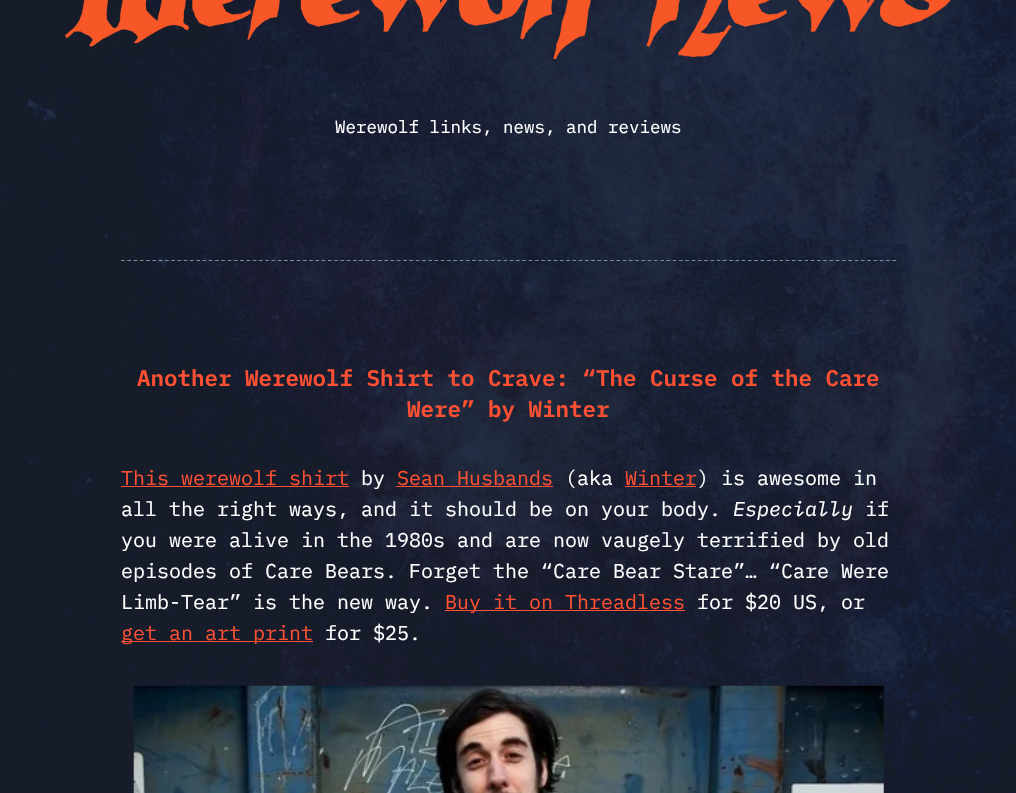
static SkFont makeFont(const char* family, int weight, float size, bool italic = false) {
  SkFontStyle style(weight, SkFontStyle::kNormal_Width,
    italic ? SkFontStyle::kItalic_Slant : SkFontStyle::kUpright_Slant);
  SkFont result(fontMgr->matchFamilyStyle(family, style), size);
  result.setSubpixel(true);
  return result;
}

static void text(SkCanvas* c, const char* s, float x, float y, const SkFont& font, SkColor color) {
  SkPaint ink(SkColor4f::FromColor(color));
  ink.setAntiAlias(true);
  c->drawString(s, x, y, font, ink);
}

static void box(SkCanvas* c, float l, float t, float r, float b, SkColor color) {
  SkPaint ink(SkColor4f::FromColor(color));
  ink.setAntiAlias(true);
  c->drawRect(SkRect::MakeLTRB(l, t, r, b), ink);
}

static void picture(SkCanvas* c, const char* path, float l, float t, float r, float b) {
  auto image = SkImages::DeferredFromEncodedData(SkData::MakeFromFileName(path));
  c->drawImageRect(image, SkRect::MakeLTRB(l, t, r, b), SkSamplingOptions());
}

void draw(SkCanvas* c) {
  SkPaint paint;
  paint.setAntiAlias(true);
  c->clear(0xffffffff);
  picture(c, "img_01.png", 0, 0, 1016, 793);
  picture(c, "img_02.png", 65, 0, 951, 60);
  SkFont face1 = makeFont("IBM Plex Mono", 400, 17.5f);
  text(c, "Werewolf links, news, and reviews", 335, 133, face1, 0xffffffff);
  paint.setStyle(SkPaint::kStroke_Style);
  paint.setStrokeWidth(1.2f);
  paint.setColor(0xff74919b);
  paint.setPathEffect(SkDashPathEffect::Make({{3.75f, 2.52f}}, 0));
  c->drawPath(SkPathBuilder().moveTo(121, 260.5f).lineTo(896, 260.5f).detach(), paint);
  paint.setPathEffect(nullptr);
  SkFont face2 = makeFont("IBM Plex Mono", 600, 22.5f);
  text(c, "Another Werewolf Shirt to Crave: “The Curse of the Care", 137, 386, face2, 0xffff5033);
  text(c, "Were” by Winter", 407, 417, face2, 0xffff5033);
  SkFont face3 = makeFont("IBM Plex Mono", 400, 20);
  text(c, "This werewolf shirt", 121, 485, face3, 0xffff5033);
  box(c, 121, 486, 349, 487, 0xffff5033);
  text(c, "by", 361, 485, face3, 0xffffffff);
  text(c, "Sean Husbands", 397, 485, face3, 0xffff5033);
  box(c, 396, 486, 553, 487, 0xffff5033);
  text(c, "(aka", 565, 485, face3, 0xffffffff);
  text(c, "Winter", 625, 485, face3, 0xffff5033);
  box(c, 625, 486, 696, 487, 0xffff5033);
  text(c, ") is awesome in", 697, 485, face3, 0xffffffff);
  text(c, "all the right ways, and it should be on your body.", 121, 516, face3, 0xffffffff);
  SkFont face4 = makeFont("IBM Plex Mono", 400, 20, true);
  text(c, "Especially", 733, 516, face4, 0xffffffff);
  text(c, "if", 865, 516, face3, 0xffffffff);
  text(c, "you were alive in the 1980s and are now vaugely terrified by old", 121, 547, face3, 0xffffffff);
  text(c, "episodes of Care Bears. Forget the “Care Bear Stare”… “Care Were", 121, 578, face3, 0xffffffff);
  text(c, "Limb-Tear” is the new way.", 121, 609, face3, 0xffffffff);
  box(c, 445, 610, 685, 611, 0xffff5033);
  text(c, "Buy it on Threadless", 445, 609, face3, 0xffff5033);
  text(c, "for $20 US, or", 697, 609, face3, 0xffffffff);
  box(c, 121, 641, 313, 642, 0xffff5033);
  text(c, "get an art print", 121, 640, face3, 0xffff5033);
  text(c, "for $25.", 325, 640, face3, 0xffffffff);
  picture(c, "img_03.png", 133, 685, 884, 793);
}
